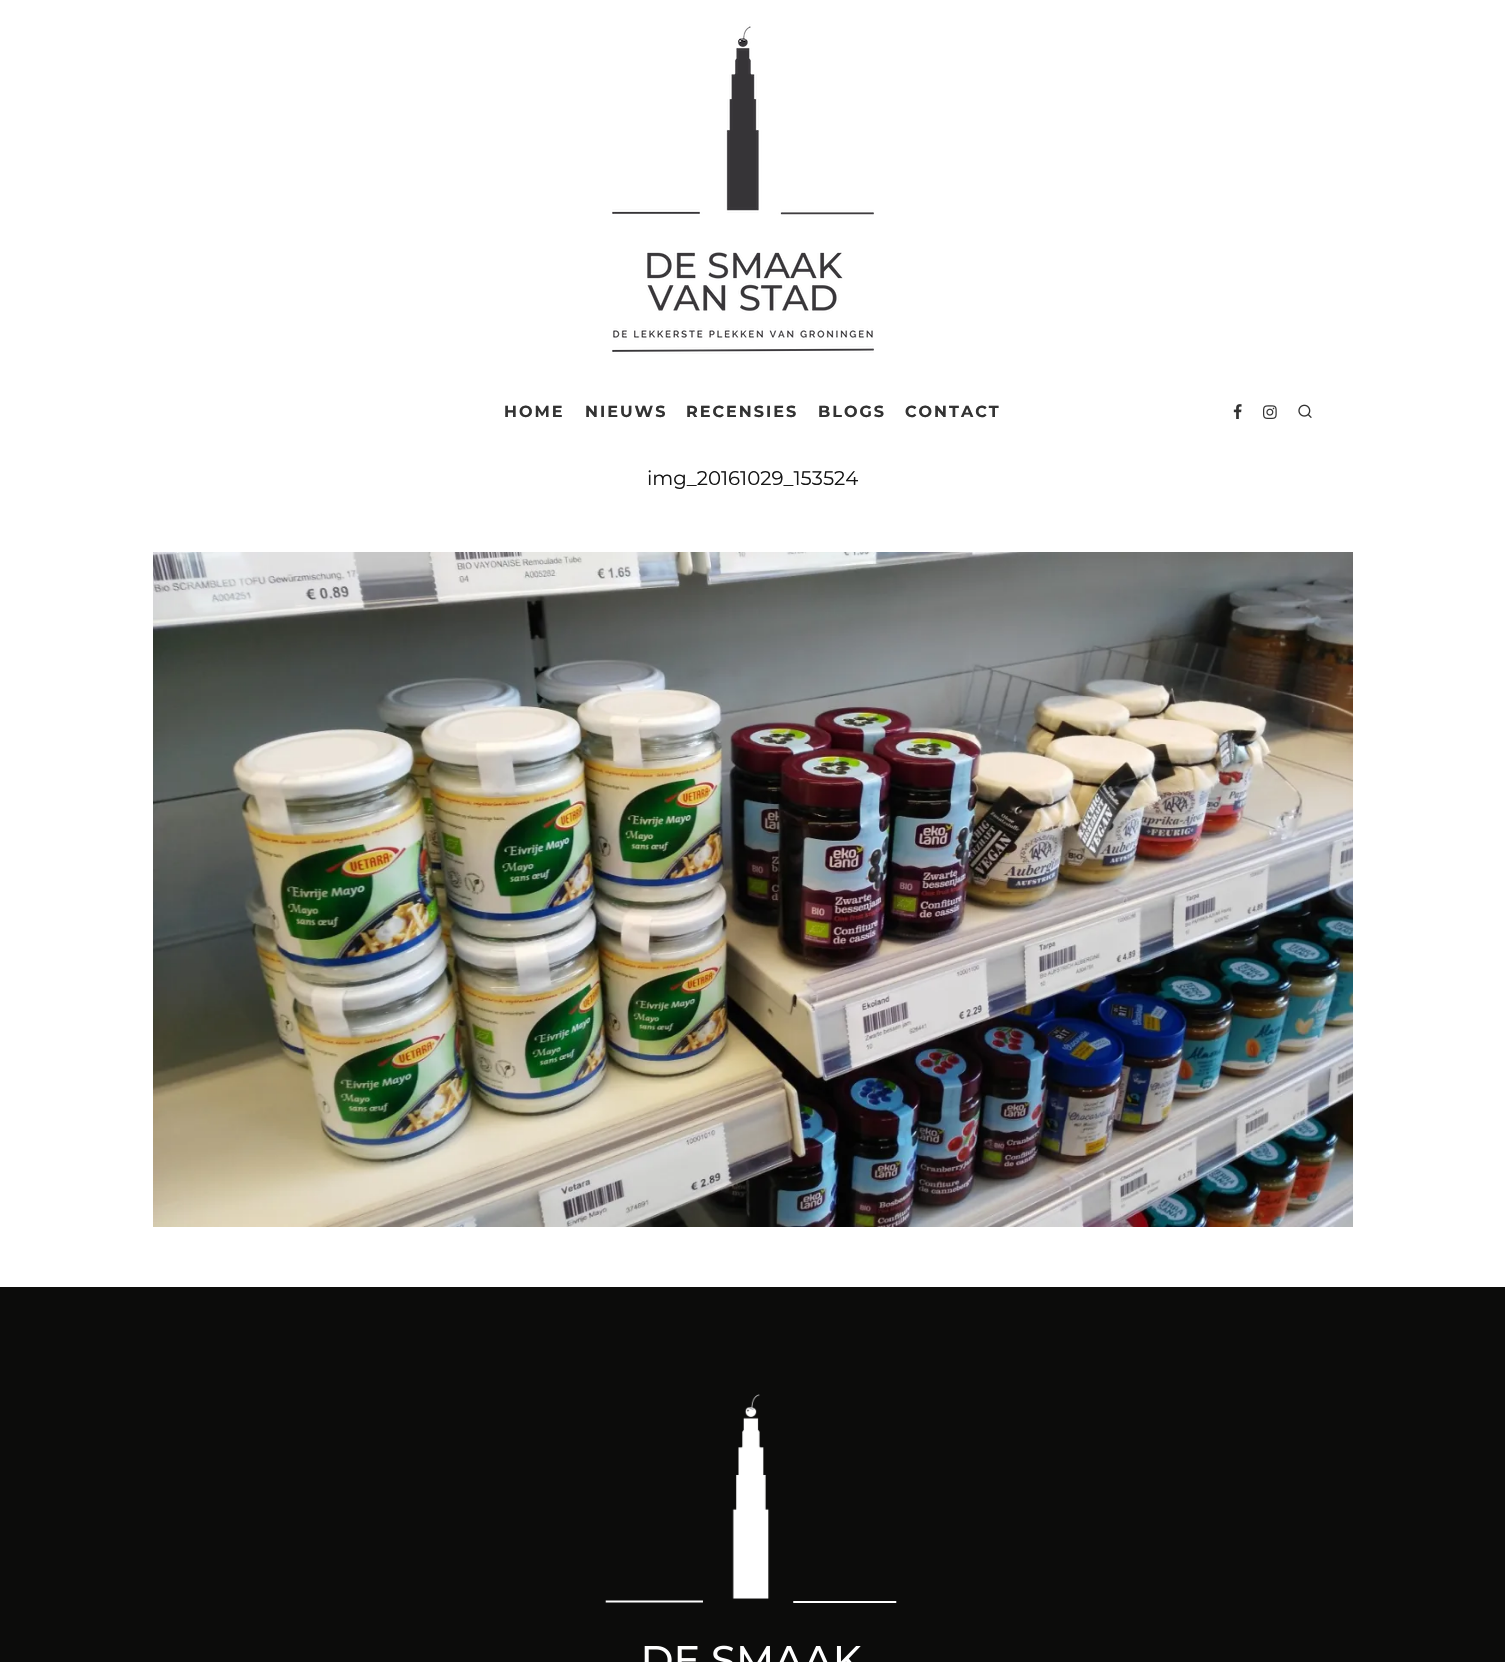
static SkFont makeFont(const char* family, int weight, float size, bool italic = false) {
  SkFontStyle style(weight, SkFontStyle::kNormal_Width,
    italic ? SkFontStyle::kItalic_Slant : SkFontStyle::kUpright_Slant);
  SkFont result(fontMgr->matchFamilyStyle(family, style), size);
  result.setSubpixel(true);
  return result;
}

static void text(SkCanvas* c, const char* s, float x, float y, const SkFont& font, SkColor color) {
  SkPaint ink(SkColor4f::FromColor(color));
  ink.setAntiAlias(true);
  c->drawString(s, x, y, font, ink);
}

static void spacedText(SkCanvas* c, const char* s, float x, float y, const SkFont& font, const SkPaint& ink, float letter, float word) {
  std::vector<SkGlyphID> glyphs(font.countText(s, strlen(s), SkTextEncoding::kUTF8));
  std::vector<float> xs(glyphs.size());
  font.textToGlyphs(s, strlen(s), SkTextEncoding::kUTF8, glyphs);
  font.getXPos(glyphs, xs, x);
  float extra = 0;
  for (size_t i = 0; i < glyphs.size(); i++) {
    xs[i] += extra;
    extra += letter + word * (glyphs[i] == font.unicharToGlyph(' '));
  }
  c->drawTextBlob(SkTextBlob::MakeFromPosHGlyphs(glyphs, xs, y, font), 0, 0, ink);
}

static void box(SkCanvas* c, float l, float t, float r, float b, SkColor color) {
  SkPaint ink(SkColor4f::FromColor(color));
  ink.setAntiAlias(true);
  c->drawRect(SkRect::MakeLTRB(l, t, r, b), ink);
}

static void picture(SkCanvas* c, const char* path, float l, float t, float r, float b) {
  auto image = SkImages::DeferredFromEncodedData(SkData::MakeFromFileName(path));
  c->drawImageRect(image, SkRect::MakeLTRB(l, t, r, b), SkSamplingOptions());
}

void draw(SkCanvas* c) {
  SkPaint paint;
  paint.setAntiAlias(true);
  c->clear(0xffffffff);
  picture(c, "img_01.png", 612, 24, 874, 354);
  SkFont face1 = makeFont("Montserrat", 700, 16);
  paint.setColor(0xff333333);
  spacedText(c, "HOME", 504, 417, face1, paint, 2, 0);
  spacedText(c, "NIEUWS", 585, 417, face1, paint, 2, 0);
  spacedText(c, "RECENSIES", 686, 417, face1, paint, 2, 0);
  spacedText(c, "BLOGS", 818, 417, face1, paint, 2, 0);
  spacedText(c, "CONTACT", 905, 417, face1, paint, 2, 0);
  picture(c, "img_02.png", 1233, 404, 1242, 419);
  picture(c, "img_03.png", 1263, 405, 1277, 419);
  picture(c, "img_04.png", 1298, 404, 1312, 418);
  SkFont face2 = makeFont("Montserrat", 400, 19.75f);
  text(c, "img_20161029_153524", 647, 485, face2, 0xff161616);
  picture(c, "img_05.png", 153, 552, 1353, 1227);
  box(c, 0, 1287, 1505, 1662, 0xff0c0c0b);
  picture(c, "img_06.png", 605, 1394, 897, 1662);
}
